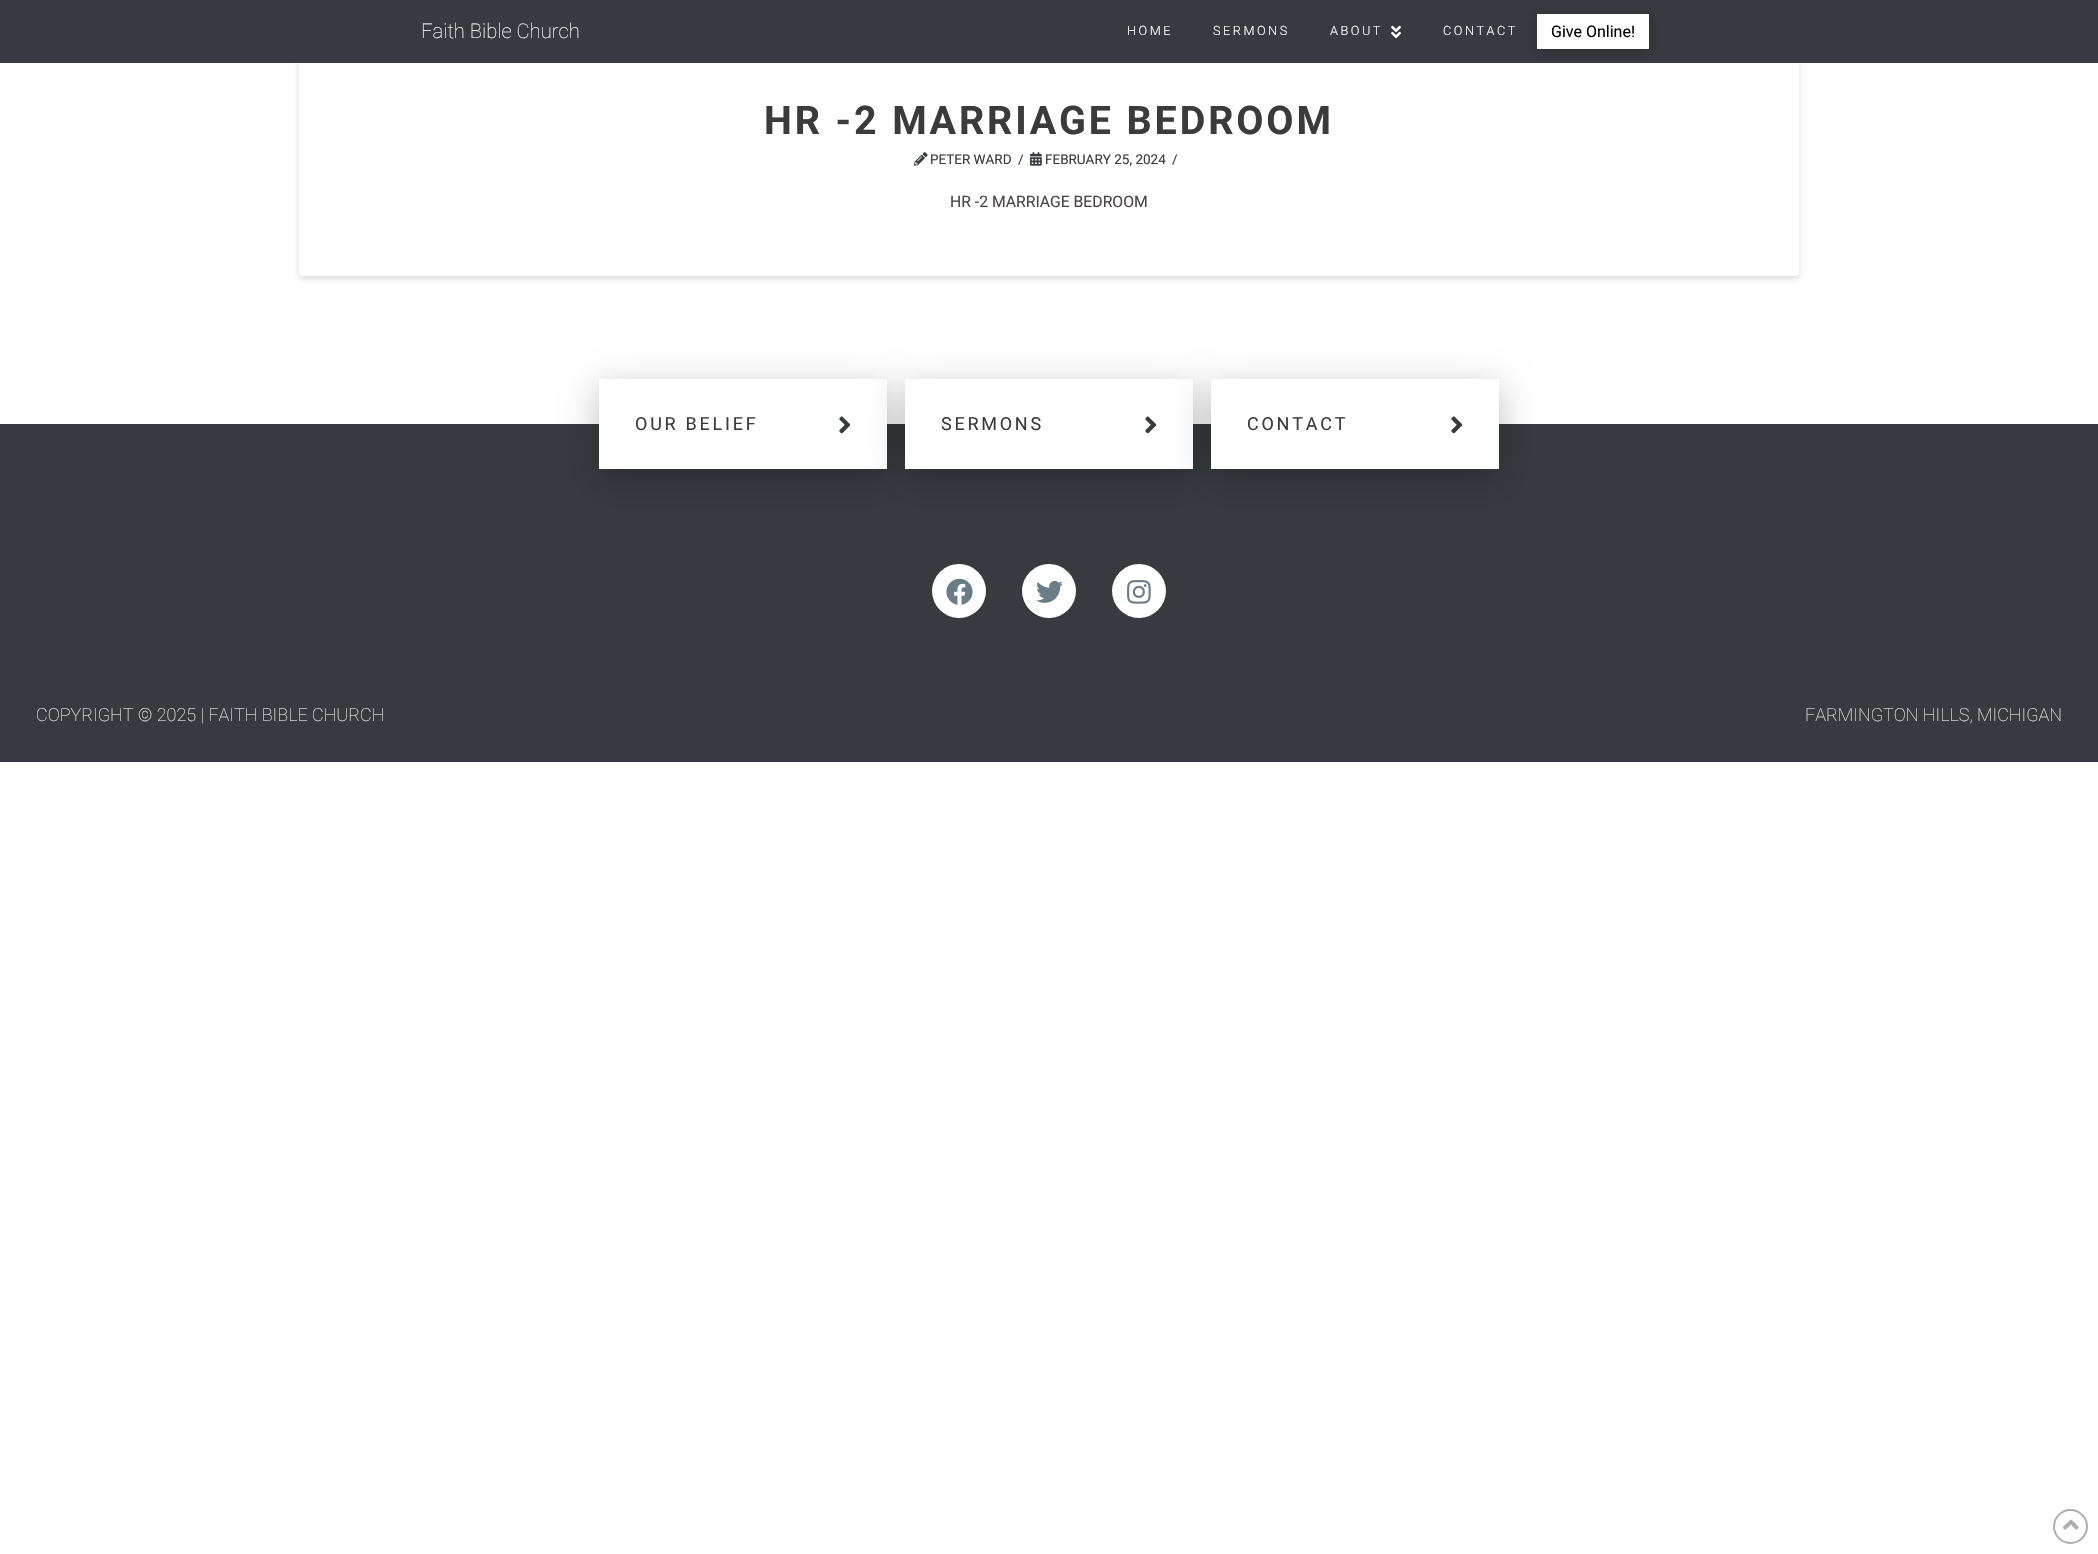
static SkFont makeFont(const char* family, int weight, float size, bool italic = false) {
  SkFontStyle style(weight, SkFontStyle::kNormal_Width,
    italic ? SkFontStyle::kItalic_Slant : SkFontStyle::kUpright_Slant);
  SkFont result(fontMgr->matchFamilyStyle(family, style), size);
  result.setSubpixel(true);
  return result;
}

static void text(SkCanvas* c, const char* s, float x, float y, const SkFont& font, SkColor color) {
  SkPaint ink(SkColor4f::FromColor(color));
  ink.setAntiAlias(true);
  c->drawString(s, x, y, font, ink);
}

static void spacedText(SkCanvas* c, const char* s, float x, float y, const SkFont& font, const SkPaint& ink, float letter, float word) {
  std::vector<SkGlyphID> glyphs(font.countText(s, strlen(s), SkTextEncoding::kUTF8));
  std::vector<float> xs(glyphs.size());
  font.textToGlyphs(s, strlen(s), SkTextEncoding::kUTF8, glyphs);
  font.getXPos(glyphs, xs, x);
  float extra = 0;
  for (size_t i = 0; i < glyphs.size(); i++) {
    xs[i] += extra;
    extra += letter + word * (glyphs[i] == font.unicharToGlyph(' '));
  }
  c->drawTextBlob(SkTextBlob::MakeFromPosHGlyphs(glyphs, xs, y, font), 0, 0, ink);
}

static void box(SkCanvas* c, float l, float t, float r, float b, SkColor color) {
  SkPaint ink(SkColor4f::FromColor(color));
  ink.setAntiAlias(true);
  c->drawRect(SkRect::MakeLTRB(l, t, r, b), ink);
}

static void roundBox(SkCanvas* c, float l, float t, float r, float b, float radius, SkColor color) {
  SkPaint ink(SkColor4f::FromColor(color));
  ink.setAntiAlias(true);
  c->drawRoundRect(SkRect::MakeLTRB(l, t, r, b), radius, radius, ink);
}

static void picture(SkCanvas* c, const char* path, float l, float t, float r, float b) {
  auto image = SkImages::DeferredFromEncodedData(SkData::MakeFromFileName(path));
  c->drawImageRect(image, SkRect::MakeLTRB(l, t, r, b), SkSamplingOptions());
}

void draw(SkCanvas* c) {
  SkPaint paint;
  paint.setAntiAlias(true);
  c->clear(0xffffffff);
  paint.setColor(0x21000000);
  paint.setMaskFilter(SkMaskFilter::MakeBlur(kNormal_SkBlurStyle, 3));
  c->drawRoundRect(SkRect::MakeLTRB(299, 43, 1799, 279), 4, 4, paint);
  paint.setMaskFilter(nullptr);
  roundBox(c, 299, 40, 1799, 276, 4, 0xffffffff);
  box(c, 0, 0, 2098, 63, 0xff373b3f);
  SkFont face1 = makeFont("Roboto", 100, 20.25f);
  text(c, "Faith Bible Church", 421, 38, face1, 0xffffffff);
  SkFont face2 = makeFont("Roboto", 300, 12.75f);
  paint.setColor(0xffffffff);
  spacedText(c, "HOME", 1127, 35, face2, paint, 2.5f, 0);
  spacedText(c, "SERMONS", 1213, 35, face2, paint, 2.5f, 0);
  spacedText(c, "ABOUT", 1330, 35, face2, paint, 2.5f, 0);
  picture(c, "img_01.png", 1391, 25, 1401, 39);
  spacedText(c, "CONTACT", 1443, 35, face2, paint, 2.5f, 0);
  paint.setColor(0x40000000);
  paint.setMaskFilter(SkMaskFilter::MakeBlur(kNormal_SkBlurStyle, 5));
  c->drawRect(SkRect::MakeLTRB(1537, 16, 1649, 51), paint);
  paint.setMaskFilter(nullptr);
  box(c, 1537, 14, 1649, 49, 0xffffffff);
  SkFont face3 = makeFont("Roboto", 400, 16);
  text(c, "Give Online!", 1551, 37, face3, 0xff000000);
  SkFont face4 = makeFont("Roboto", 700, 39.4f);
  paint.setColor(0xff3b3b3b);
  spacedText(c, "HR -2 MARRIAGE BEDROOM", 764, 134, face4, paint, 2.9f, 0);
  picture(c, "img_02.png", 914, 152, 928, 166);
  SkFont face5 = makeFont("Roboto", 400, 13.5f);
  text(c, "PETER WARD", 930, 164, face5, 0xff3b3b3b);
  text(c, "/", 1018, 164, face5, 0xff3b3b3b);
  picture(c, "img_03.png", 1030, 152, 1042, 166);
  text(c, "FEBRUARY 25, 2024", 1045, 164, face5, 0xff3b3b3b);
  text(c, "/", 1172, 164, face5, 0xff3b3b3b);
  SkFont face6 = makeFont("Roboto", 400, 15.75f);
  text(c, "HR -2 MARRIAGE BEDROOM", 950, 207, face6, 0xff4a4545);
  box(c, 0, 424, 2098, 762, 0xff373b3f);
  paint.setColor(0x40000000);
  paint.setMaskFilter(SkMaskFilter::MakeBlur(kNormal_SkBlurStyle, 18));
  c->drawRect(SkRect::MakeLTRB(599, 388, 887, 478), paint);
  paint.setMaskFilter(nullptr);
  box(c, 599, 379, 887, 469, 0xffffffff);
  SkFont face7 = makeFont("Roboto", 400, 18);
  paint.setColor(0xff3b3b3b);
  spacedText(c, "OUR BELIEF", 635, 430, face7, paint, 2.75f, 0);
  picture(c, "img_04.png", 839, 416, 851, 434);
  paint.setColor(0x40000000);
  paint.setMaskFilter(SkMaskFilter::MakeBlur(kNormal_SkBlurStyle, 18));
  c->drawRect(SkRect::MakeLTRB(905, 388, 1193, 478), paint);
  paint.setMaskFilter(nullptr);
  box(c, 905, 379, 1193, 469, 0xffffffff);
  paint.setColor(0xff3b3b3b);
  spacedText(c, "SERMONS", 941, 430, face7, paint, 2.75f, 0);
  picture(c, "img_04.png", 1145, 416, 1157, 434);
  paint.setColor(0x40000000);
  paint.setMaskFilter(SkMaskFilter::MakeBlur(kNormal_SkBlurStyle, 18));
  c->drawRect(SkRect::MakeLTRB(1211, 388, 1499, 478), paint);
  paint.setMaskFilter(nullptr);
  box(c, 1211, 379, 1499, 469, 0xffffffff);
  paint.setColor(0xff3b3b3b);
  spacedText(c, "CONTACT", 1247, 430, face7, paint, 2.75f, 0);
  picture(c, "img_04.png", 1451, 416, 1463, 434);
  paint.setColor(0xffffffff);
  c->drawCircle(959, 591, 27, paint);
  picture(c, "img_05.png", 946, 578, 973, 605);
  c->drawCircle(1049, 591, 27, paint);
  picture(c, "img_06.png", 1036, 580, 1063, 603);
  c->drawCircle(1139, 591, 27, paint);
  picture(c, "img_07.png", 1127, 580, 1151, 604);
  SkFont face8 = makeFont("Roboto", 100, 18);
  text(c, "COPYRIGHT © 2025 | FAITH BIBLE CHURCH", 36, 721, face8, 0xffebe9e3);
  text(c, "FARMINGTON HILLS, MICHIGAN", 1805, 721, face8, 0xffebe9e3);
  paint.setStyle(SkPaint::kStroke_Style);
  paint.setStrokeWidth(2);
  paint.setColor(0xffaeaeae);
  c->drawCircle(2070.5f, 1526.5f, 16.5f, paint);
  picture(c, "img_08.png", 2063, 1519, 2079, 1530);
}
